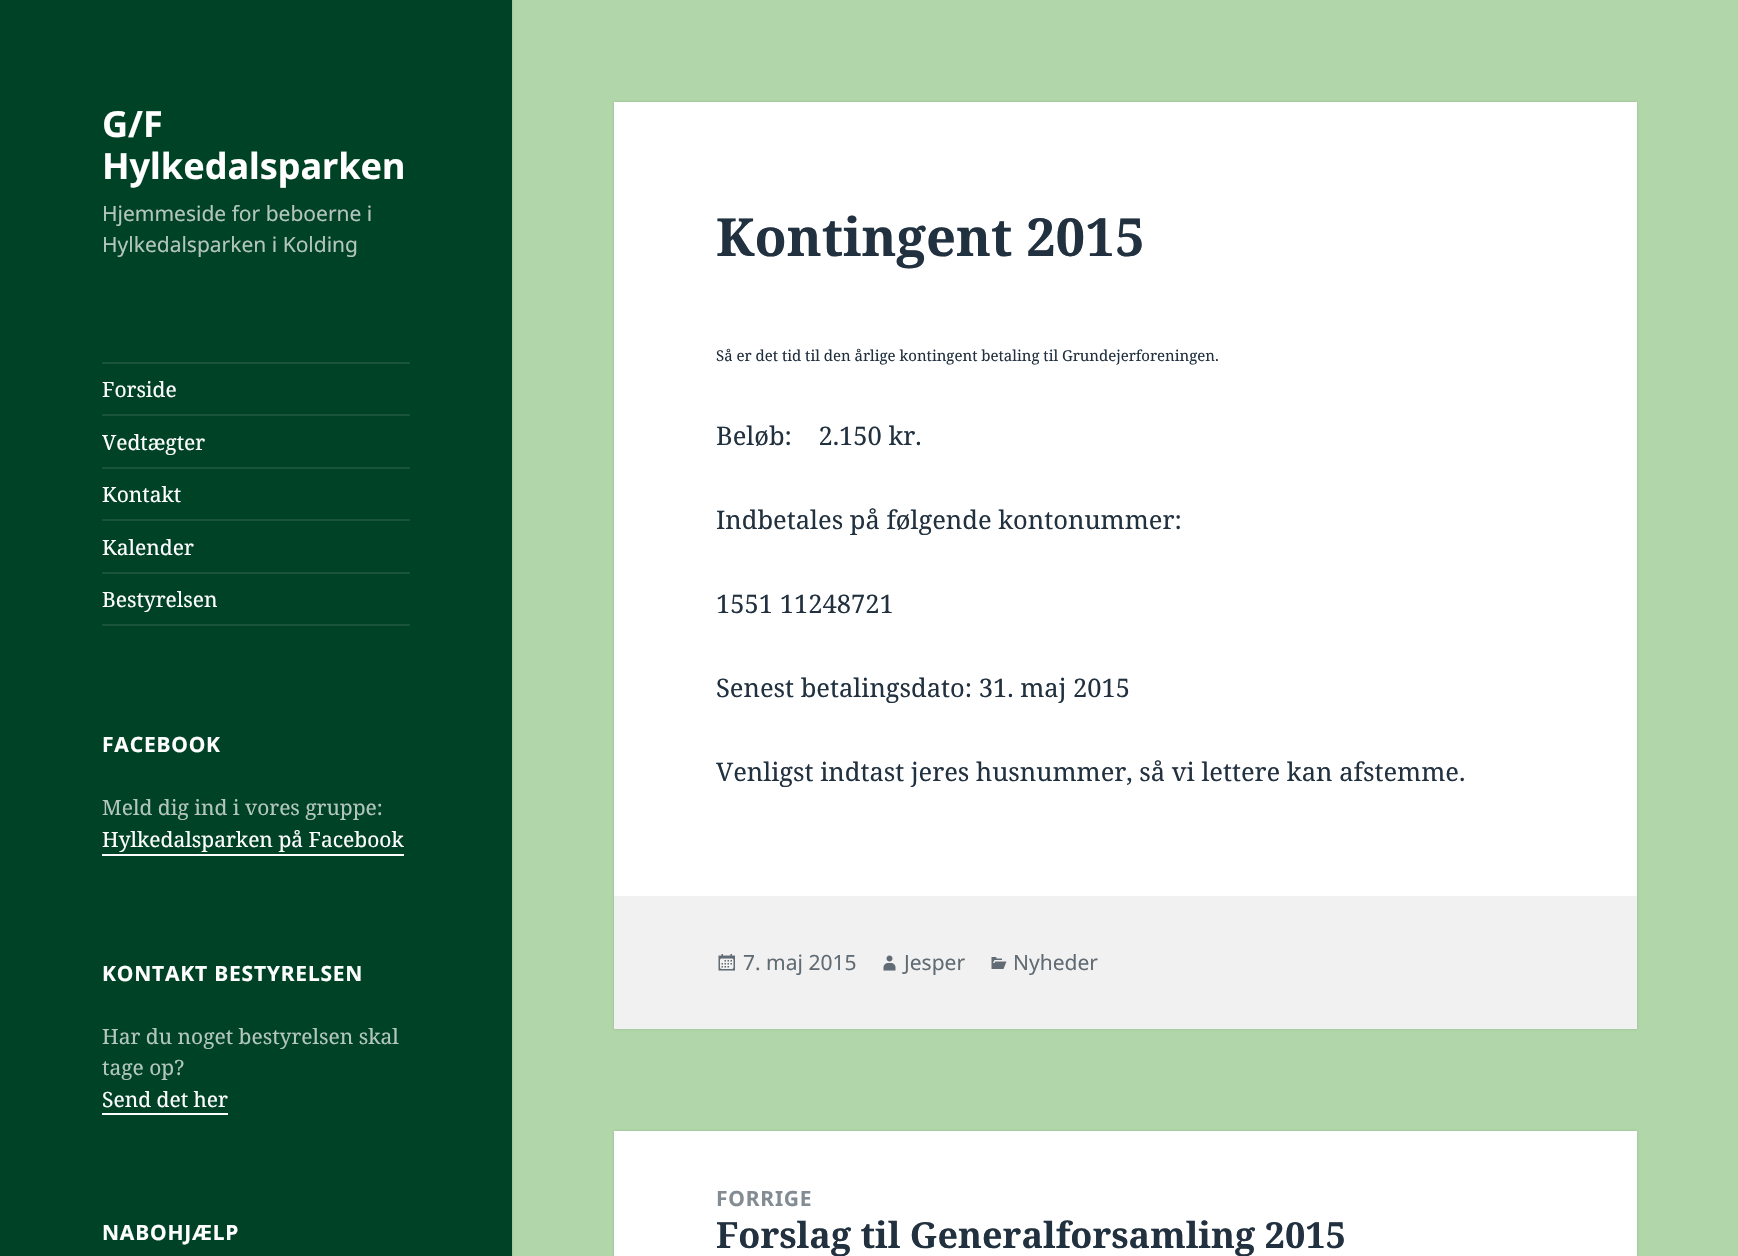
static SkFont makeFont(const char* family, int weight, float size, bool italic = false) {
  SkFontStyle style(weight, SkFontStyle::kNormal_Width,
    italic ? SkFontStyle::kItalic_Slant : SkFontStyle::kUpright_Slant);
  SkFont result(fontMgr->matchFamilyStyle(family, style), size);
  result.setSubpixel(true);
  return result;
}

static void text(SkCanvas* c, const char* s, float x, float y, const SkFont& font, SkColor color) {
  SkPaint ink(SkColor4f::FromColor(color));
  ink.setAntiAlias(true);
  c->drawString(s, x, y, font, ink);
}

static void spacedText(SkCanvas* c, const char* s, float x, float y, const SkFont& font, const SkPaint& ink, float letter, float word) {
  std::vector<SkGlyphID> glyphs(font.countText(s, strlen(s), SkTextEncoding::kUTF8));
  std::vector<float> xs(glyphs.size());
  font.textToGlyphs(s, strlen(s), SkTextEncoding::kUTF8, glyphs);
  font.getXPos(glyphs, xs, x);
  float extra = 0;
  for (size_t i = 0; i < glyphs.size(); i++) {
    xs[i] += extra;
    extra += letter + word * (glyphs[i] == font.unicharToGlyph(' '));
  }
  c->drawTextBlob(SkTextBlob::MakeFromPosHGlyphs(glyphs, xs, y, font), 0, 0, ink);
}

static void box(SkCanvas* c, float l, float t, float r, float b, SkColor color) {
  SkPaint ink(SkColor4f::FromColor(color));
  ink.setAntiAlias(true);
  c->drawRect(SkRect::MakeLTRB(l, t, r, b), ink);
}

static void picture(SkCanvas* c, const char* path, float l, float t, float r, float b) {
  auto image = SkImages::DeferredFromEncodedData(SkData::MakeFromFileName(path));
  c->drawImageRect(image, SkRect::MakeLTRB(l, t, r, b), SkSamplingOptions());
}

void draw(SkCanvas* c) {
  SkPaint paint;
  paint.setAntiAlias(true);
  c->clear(0xffb0d6a9);
  paint.setColor(0x26000000);
  paint.setMaskFilter(SkMaskFilter::MakeBlur(kNormal_SkBlurStyle, 1));
  c->drawRect(SkRect::MakeLTRB(0, 0, 512, 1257), paint);
  paint.setMaskFilter(nullptr);
  box(c, 0, 0, 512, 1256, 0xff004225);
  SkFont face1 = makeFont("Noto Sans", 700, 36);
  text(c, "G/F", 102, 137, face1, 0xffffffff);
  text(c, "Hylkedalsparken", 102, 179, face1, 0xffffffff);
  SkFont face2 = makeFont("Noto Sans", 400, 21);
  text(c, "Hjemmeside for beboerne i", 102, 221, face2, 0xffb3c6be);
  text(c, "Hylkedalsparken i Kolding", 102, 252, face2, 0xffb3c6be);
  box(c, 102, 362, 410, 364, 0xff1a553b);
  box(c, 102, 624, 410, 626, 0xff1a553b);
  SkFont face3 = makeFont("Noto Serif", 400, 21);
  text(c, "Forside", 102, 397, face3, 0xffffffff);
  box(c, 102, 414, 410, 416, 0xff1a553b);
  text(c, "Vedtægter", 102, 450, face3, 0xffffffff);
  box(c, 102, 467, 410, 469, 0xff1a553b);
  text(c, "Kontakt", 102, 502, face3, 0xffffffff);
  box(c, 102, 519, 410, 521, 0xff1a553b);
  text(c, "Kalender", 102, 555, face3, 0xffffffff);
  box(c, 102, 572, 410, 574, 0xff1a553b);
  text(c, "Bestyrelsen", 102, 607, face3, 0xffffffff);
  SkFont face4 = makeFont("Noto Sans", 700, 21);
  paint.setColor(0xffffffff);
  spacedText(c, "FACEBOOK", 102, 752, face4, paint, 0.8f, 0);
  text(c, "Meld dig ind i vores gruppe:", 102, 815, face3, 0xffb3c6be);
  text(c, "Hylkedalsparken på Facebook", 102, 847, face3, 0xffffffff);
  box(c, 102, 854, 404, 856, 0xffffffff);
  spacedText(c, "KONTAKT BESTYRELSEN", 102, 981, face4, paint, 0.8f, 0);
  text(c, "Har du noget bestyrelsen skal", 102, 1044, face3, 0xffb3c6be);
  text(c, "tage op?", 102, 1075, face3, 0xffb3c6be);
  text(c, "Send det her", 102, 1107, face3, 0xffffffff);
  box(c, 102, 1113, 228, 1115, 0xffffffff);
  spacedText(c, "NABOHJÆLP", 102, 1240, face4, paint, 0.8f, 0);
  paint.setColor(0x26000000);
  paint.setMaskFilter(SkMaskFilter::MakeBlur(kNormal_SkBlurStyle, 1));
  c->drawRect(SkRect::MakeLTRB(614, 102, 1637, 1029), paint);
  paint.setMaskFilter(nullptr);
  box(c, 614, 102, 1637, 896, 0xffffffff);
  SkFont face5 = makeFont("Noto Serif", 700, 52.5f);
  text(c, "Kontingent 2015", 716, 256, face5, 0xff22313f);
  SkFont face6 = makeFont("Noto Serif", 400, 15);
  text(c, "Så er det tid til den årlige kontingent betaling til Grundejerforeningen.", 716, 361, face6, 0xff22313f);
  SkFont face7 = makeFont("Noto Serif", 400, 25.5f);
  text(c, "Beløb:    2.150 kr.", 716, 445, face7, 0xff22313f);
  text(c, "Indbetales på følgende kontonummer:", 716, 529, face7, 0xff22313f);
  text(c, "1551 11248721", 716, 613, face7, 0xff22313f);
  text(c, "Senest betalingsdato: 31. maj 2015", 716, 697, face7, 0xff22313f);
  text(c, "Venligst indtast jeres husnummer, så vi lettere kan afstemme.", 716, 781, face7, 0xff22313f);
  box(c, 614, 896, 1637, 1029, 0xfff1f1f1);
  picture(c, "img_01.png", 718, 954, 735, 971);
  text(c, "7. maj 2015", 743, 970, face2, 0xff606b74);
  picture(c, "img_02.png", 883, 955, 896, 971);
  text(c, "Jesper", 904, 970, face2, 0xff606b74);
  picture(c, "img_03.png", 991, 957, 1007, 969);
  text(c, "Nyheder", 1013, 970, face2, 0xff606b74);
  paint.setMaskFilter(SkMaskFilter::MakeBlur(kNormal_SkBlurStyle, 1));
  c->drawRect(SkRect::MakeLTRB(614, 1131, 1637, 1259), paint);
  paint.setMaskFilter(nullptr);
  box(c, 614, 1131, 1637, 1256, 0xffffffff);
  paint.setColor(0xff838c93);
  spacedText(c, "FORRIGE", 716, 1206, face4, paint, 0.8f, 0);
  SkFont face8 = makeFont("Noto Serif", 700, 36);
  text(c, "Forslag til Generalforsamling 2015", 716, 1248, face8, 0xff22313f);
}
